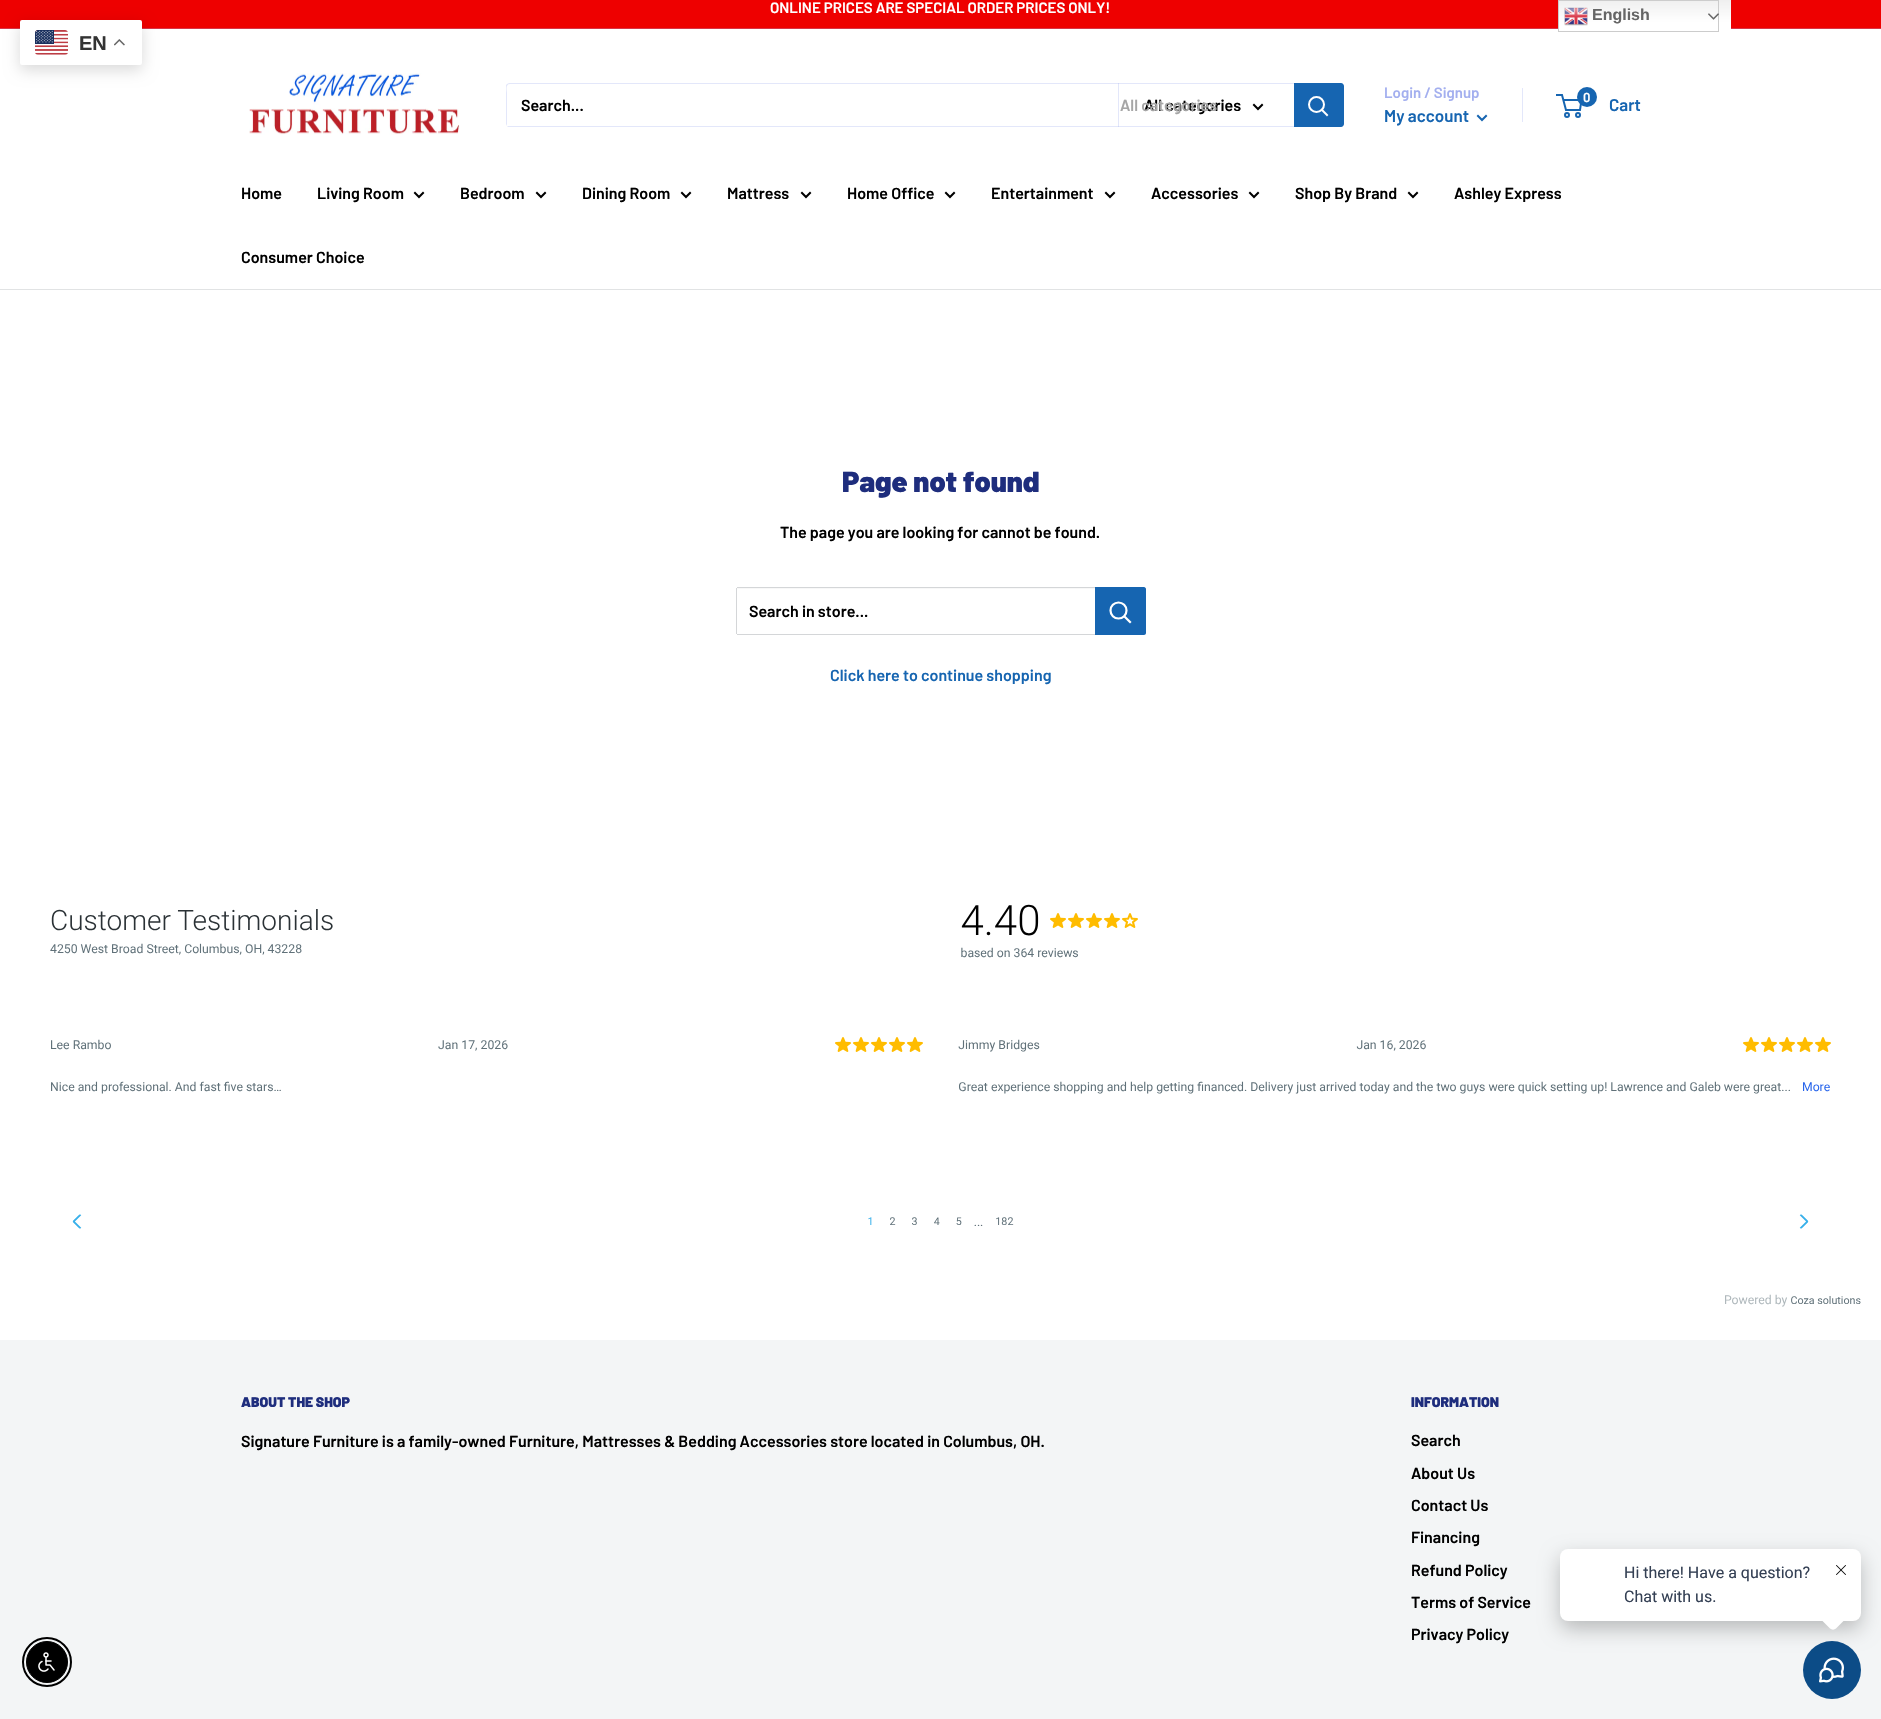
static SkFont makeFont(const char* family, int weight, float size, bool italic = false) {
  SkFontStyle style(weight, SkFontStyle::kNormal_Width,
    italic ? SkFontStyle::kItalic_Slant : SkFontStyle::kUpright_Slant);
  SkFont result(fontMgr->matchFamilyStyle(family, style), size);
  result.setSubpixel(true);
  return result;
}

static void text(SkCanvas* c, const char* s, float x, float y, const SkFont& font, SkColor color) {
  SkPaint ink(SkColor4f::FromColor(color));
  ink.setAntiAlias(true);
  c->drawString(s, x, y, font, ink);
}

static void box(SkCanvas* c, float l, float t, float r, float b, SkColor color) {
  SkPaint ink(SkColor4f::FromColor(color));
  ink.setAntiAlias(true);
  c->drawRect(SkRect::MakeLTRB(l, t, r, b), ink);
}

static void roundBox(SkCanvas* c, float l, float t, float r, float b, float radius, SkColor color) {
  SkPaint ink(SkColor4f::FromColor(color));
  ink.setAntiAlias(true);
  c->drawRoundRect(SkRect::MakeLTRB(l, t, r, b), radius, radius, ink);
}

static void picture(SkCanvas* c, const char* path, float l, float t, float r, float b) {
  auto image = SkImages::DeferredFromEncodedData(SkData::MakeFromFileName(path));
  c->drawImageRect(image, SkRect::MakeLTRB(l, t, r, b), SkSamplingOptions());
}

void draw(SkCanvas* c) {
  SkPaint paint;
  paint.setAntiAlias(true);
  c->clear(0xffffffff);
  box(c, 0, 0, 1881, 28, 0xffee0000);
  box(c, 0, 28, 1881, 29, 0xffd83548);
  SkFont face1 = makeFont("Barlow", 600, 15);
  text(c, "ONLINE PRICES ARE SPECIAL ORDER PRICES ONLY!", 770, 13, face1, 0xffffffff);
  {
    const SkColor colors[] = {0xffefefef, 0xffffffff};
    const float stops[] = {0, 0.7f};
    const SkPoint ends[] = {{1645, 0}, {1645, 32}};
    paint.setShader(SkGradientShader::MakeLinear(ends, colors, stops, 2, SkTileMode::kClamp));
    paint.setAlpha(255);
  }
  c->drawRect(SkRect::MakeLTRB(1559, 0, 1731, 29), paint);
  paint.setStyle(SkPaint::kStroke_Style);
  paint.setStrokeWidth(1);
  paint.setShader(nullptr);
  paint.setColor(0xffcccccc);
  c->drawRect(SkRect::MakeLTRB(1558.5f, 0.5f, 1718.5f, 31.5f), paint);
  picture(c, "img_01.png", 1564, 7, 1588, 26);
  SkFont face2 = makeFont("Liberation Sans", 700, 16);
  text(c, "English", 1592, 20, face2, 0xff666666);
  picture(c, "img_02.png", 1708, 13, 1719, 20);
  paint.setStyle(SkPaint::kFill_Style);
  paint.setColor(0x26000000);
  paint.setMaskFilter(SkMaskFilter::MakeBlur(kNormal_SkBlurStyle, 7.5f));
  c->drawRoundRect(SkRect::MakeLTRB(20, 25, 142, 70), 2, 2, paint);
  paint.setMaskFilter(nullptr);
  roundBox(c, 20, 20, 142, 65, 2, 0xffffffff);
  picture(c, "img_03.png", 35, 30, 68, 55);
  SkFont face3 = makeFont("Liberation Sans", 700, 20);
  text(c, "EN", 79, 50, face3, 0xff333333);
  picture(c, "img_04.png", 114, 39, 125, 46);
  picture(c, "img_05.png", 249, 73, 460, 135);
  paint.setColor(0xffe3e7fa);
  c->drawPath(SkPathBuilder().moveTo(507, 126).lineTo(508, 127).lineTo(1341, 127).lineTo(1343, 126).lineTo(1344, 125).lineTo(1344, 86).lineTo(1343, 84).lineTo(1343, 117).cubicTo(1343, 119, 1345, 126, 1340, 126).close().detach(), paint);
  c->drawPath(SkPathBuilder().moveTo(510, 84).lineTo(1343, 84).lineTo(1342, 83).lineTo(509, 83).lineTo(507, 84).lineTo(506, 85).lineTo(506, 124).lineTo(507, 126).lineTo(507, 93).cubicTo(507, 91, 505, 84, 510, 84).close().detach(), paint);
  SkFont face4 = makeFont("Barlow", 600, 16);
  text(c, "Search...", 521, 111, face4, 0xff000000);
  box(c, 1118, 83, 1119, 127, 0x4da3afef);
  text(c, "All categories", 1144, 111, face4, 0xff000000);
  text(c, "All categories", 1120, 111, face4, 0xffa6a6a6);
  paint.setStyle(SkPaint::kStroke_Style);
  paint.setStrokeWidth(2);
  paint.setStrokeCap(SkPaint::kSquare_Cap);
  paint.setColor(0xff000000);
  c->drawPath(SkPathBuilder().moveTo(1262, 105).lineTo(1258, 109).lineTo(1254, 105).detach(), paint);
  paint.setStyle(SkPaint::kFill_Style);
  paint.setColor(0xff1665b1);
  c->drawPath(SkPathBuilder().moveTo(1294, 83).lineTo(1341, 83).cubicTo(1342.5f, 83, 1344, 84.5f, 1344, 86).lineTo(1344, 124).cubicTo(1344, 125.5f, 1342.5f, 127, 1341, 127).lineTo(1294, 127).close().detach(), paint);
  paint.setStyle(SkPaint::kStroke_Style);
  paint.setColor(0xffffffff);
  c->drawPath(SkPathBuilder().moveTo(1327, 115).lineTo(1322, 110).detach(), paint);
  paint.setStrokeCap(SkPaint::kButt_Cap);
  c->drawCircle(1316.5f, 104.5f, 7.5f, paint);
  text(c, "Login / Signup", 1384, 98, face1, 0xffa3afef);
  box(c, 1522, 88, 1523, 122, 0xffe3e7fa);
  SkFont face5 = makeFont("Barlow", 600, 17);
  text(c, "My account", 1384, 122, face5, 0xff1665b1);
  paint.setStrokeCap(SkPaint::kSquare_Cap);
  paint.setColor(0xff1665b1);
  c->drawPath(SkPathBuilder().moveTo(1486, 116).lineTo(1482, 120).lineTo(1478, 116).detach(), paint);
  paint.setStrokeCap(SkPaint::kButt_Cap);
  c->drawCircle(1567, 115, 2, paint);
  c->drawCircle(1578, 115, 2, paint);
  c->drawPath(SkPathBuilder().moveTo(1563.5f, 100).lineTo(1581.5f, 100).lineTo(1580, 110).lineTo(1566, 110).lineTo(1562, 95).lineTo(1556, 95).detach(), paint);
  paint.setStyle(SkPaint::kFill_Style);
  c->drawCircle(1587, 97, 10, paint);
  SkFont face6 = makeFont("Barlow", 600, 13);
  text(c, "0", 1583, 102, face6, 0xffffffff);
  text(c, "Cart", 1609, 111, face5, 0xff1665b1);
  box(c, 0, 289, 1881, 290, 0xffe1e3e4);
  text(c, "Home", 241, 199, face4, 0xff000000);
  text(c, "Living Room", 317, 199, face4, 0xff000000);
  paint.setStyle(SkPaint::kStroke_Style);
  paint.setStrokeCap(SkPaint::kSquare_Cap);
  paint.setColor(0xff000000);
  c->drawPath(SkPathBuilder().moveTo(423, 193).lineTo(419, 197).lineTo(415, 193).detach(), paint);
  text(c, "Bedroom", 460, 199, face4, 0xff000000);
  c->drawPath(SkPathBuilder().moveTo(545, 193).lineTo(541, 197).lineTo(537, 193).detach(), paint);
  text(c, "Dining Room", 582, 199, face4, 0xff000000);
  c->drawPath(SkPathBuilder().moveTo(690, 193).lineTo(686, 197).lineTo(682, 193).detach(), paint);
  text(c, "Mattress", 727, 199, face4, 0xff000000);
  c->drawPath(SkPathBuilder().moveTo(810, 193).lineTo(806, 197).lineTo(802, 193).detach(), paint);
  text(c, "Home Office", 847, 199, face4, 0xff000000);
  c->drawPath(SkPathBuilder().moveTo(954, 193).lineTo(950, 197).lineTo(946, 193).detach(), paint);
  text(c, "Entertainment", 991, 199, face4, 0xff000000);
  c->drawPath(SkPathBuilder().moveTo(1114, 193).lineTo(1110, 197).lineTo(1106, 193).detach(), paint);
  text(c, "Accessories", 1151, 199, face4, 0xff000000);
  c->drawPath(SkPathBuilder().moveTo(1258, 193).lineTo(1254, 197).lineTo(1250, 193).detach(), paint);
  text(c, "Shop By Brand", 1295, 199, face4, 0xff000000);
  c->drawPath(SkPathBuilder().moveTo(1417, 193).lineTo(1413, 197).lineTo(1409, 193).detach(), paint);
  text(c, "Ashley Express", 1454, 199, face4, 0xff000000);
  text(c, "Consumer Choice", 241, 263, face4, 0xff000000);
  SkFont face7 = makeFont("Barlow", 900, 29);
  text(c, "Page not found", 842, 492, face7, 0xff1e2d7d);
  text(c, "The page you are looking for cannot be found.", 780, 538, face4, 0xff000000);
  paint.setStyle(SkPaint::kFill_Style);
  paint.setColor(0xfff8f8f8);
  c->drawPath(SkPathBuilder().moveTo(738, 589).lineTo(1095, 589).lineTo(1095, 588).lineTo(738, 588).cubicTo(737, 588, 737, 589, 737, 590).cubicTo(737, 589, 737, 589, 738, 589).close().detach(), paint);
  box(c, 737, 587, 1095, 588, 0xffd4d6d8);
  box(c, 737, 634, 1095, 635, 0xffd4d6d8);
  box(c, 736, 588, 737, 634, 0xffd4d6d8);
  text(c, "Search in store...", 749, 617, face4, 0xff000000);
  paint.setColor(0xff1665b1);
  c->drawPath(SkPathBuilder().moveTo(1095, 587).lineTo(1144, 587).cubicTo(1145, 587, 1146, 588, 1146, 589).lineTo(1146, 633).cubicTo(1146, 634, 1145, 635, 1144, 635).lineTo(1095, 635).close().detach(), paint);
  paint.setStyle(SkPaint::kStroke_Style);
  paint.setStrokeWidth(2.2f);
  paint.setColor(0xffffffff);
  c->drawPath(SkPathBuilder().moveTo(1130, 622).lineTo(1124.5f, 616.5f).detach(), paint);
  paint.setStrokeCap(SkPaint::kButt_Cap);
  c->drawCircle(1118.5f, 610.5f, 8, paint);
  text(c, "Click here to continue shopping", 830, 681, face4, 0xff1665b1);
  picture(c, "img_06.png", 50, 904, 1861, 1307);
  box(c, 0, 1340, 1881, 1719, 0xfff3f5f6);
  SkFont face8 = makeFont("Barlow", 900, 14);
  text(c, "ABOUT THE SHOP", 241, 1407, face8, 0xff1e2d7d);
  text(c, "Signature Furniture is a family-owned Furniture, Mattresses & Bedding Accessories store located in Columbus, OH.", 241, 1447, face4, 0xff000000);
  text(c, "INFORMATION", 1411, 1407, face8, 0xff1e2d7d);
  text(c, "Search", 1411, 1446, face4, 0xff000000);
  text(c, "About Us", 1411, 1479, face4, 0xff000000);
  text(c, "Contact Us", 1411, 1511, face4, 0xff000000);
  text(c, "Financing", 1411, 1543, face4, 0xff000000);
  text(c, "Refund Policy", 1411, 1576, face4, 0xff000000);
  text(c, "Terms of Service", 1411, 1608, face4, 0xff000000);
  text(c, "Privacy Policy", 1411, 1640, face4, 0xff000000);
  paint.setStyle(SkPaint::kFill_Style);
  paint.setColor(0xff0c4c87);
  c->drawCircle(1832, 1670, 29, paint);
  picture(c, "img_08.png", 1819, 1657, 1844, 1683);
  paint.setColor(0x3d000000);
  paint.setMaskFilter(SkMaskFilter::MakeBlur(kNormal_SkBlurStyle, 10));
  c->drawRoundRect(SkRect::MakeLTRB(1560, 1557, 1861, 1629), 8, 8, paint);
  paint.setMaskFilter(nullptr);
  roundBox(c, 1560, 1549, 1861, 1621, 8, 0xffffffff);
  SkFont face9 = makeFont("Roboto", 400, 16);
  text(c, "Hi there! Have a question?", 1624, 1578, face9, 0xff344054);
  text(c, "Chat with us.", 1624, 1602, face9, 0xff344054);
  paint.setColor(0xffffffff);
  c->drawPath(SkPathBuilder().moveTo(1836, 1605.5f).lineTo(1844.5f, 1614).cubicTo(1846, 1615.5f, 1846, 1618.5f, 1844.5f, 1620).lineTo(1836, 1628.5f).cubicTo(1834.5f, 1630, 1831.5f, 1630, 1830, 1628.5f).lineTo(1821.5f, 1620).cubicTo(1820, 1618.5f, 1820, 1615.5f, 1821.5f, 1614).lineTo(1830, 1605.5f).cubicTo(1831.5f, 1604, 1834.5f, 1604, 1836, 1605.5f).close().detach(), paint);
  picture(c, "img_07.png", 1836, 1565, 1846, 1575);
  paint.setStyle(SkPaint::kStroke_Style);
  paint.setStrokeWidth(2);
  paint.setColor(0xff000000);
  c->drawCircle(47, 1662, 24, paint);
  paint.setStyle(SkPaint::kFill_Style);
  c->drawCircle(47, 1662, 20.5f, paint);
  paint.setStyle(SkPaint::kStroke_Style);
  paint.setStrokeWidth(1);
  c->drawCircle(47, 1662, 20.5f, paint);
  picture(c, "img_09.png", 38, 1652, 55, 1672);
}
